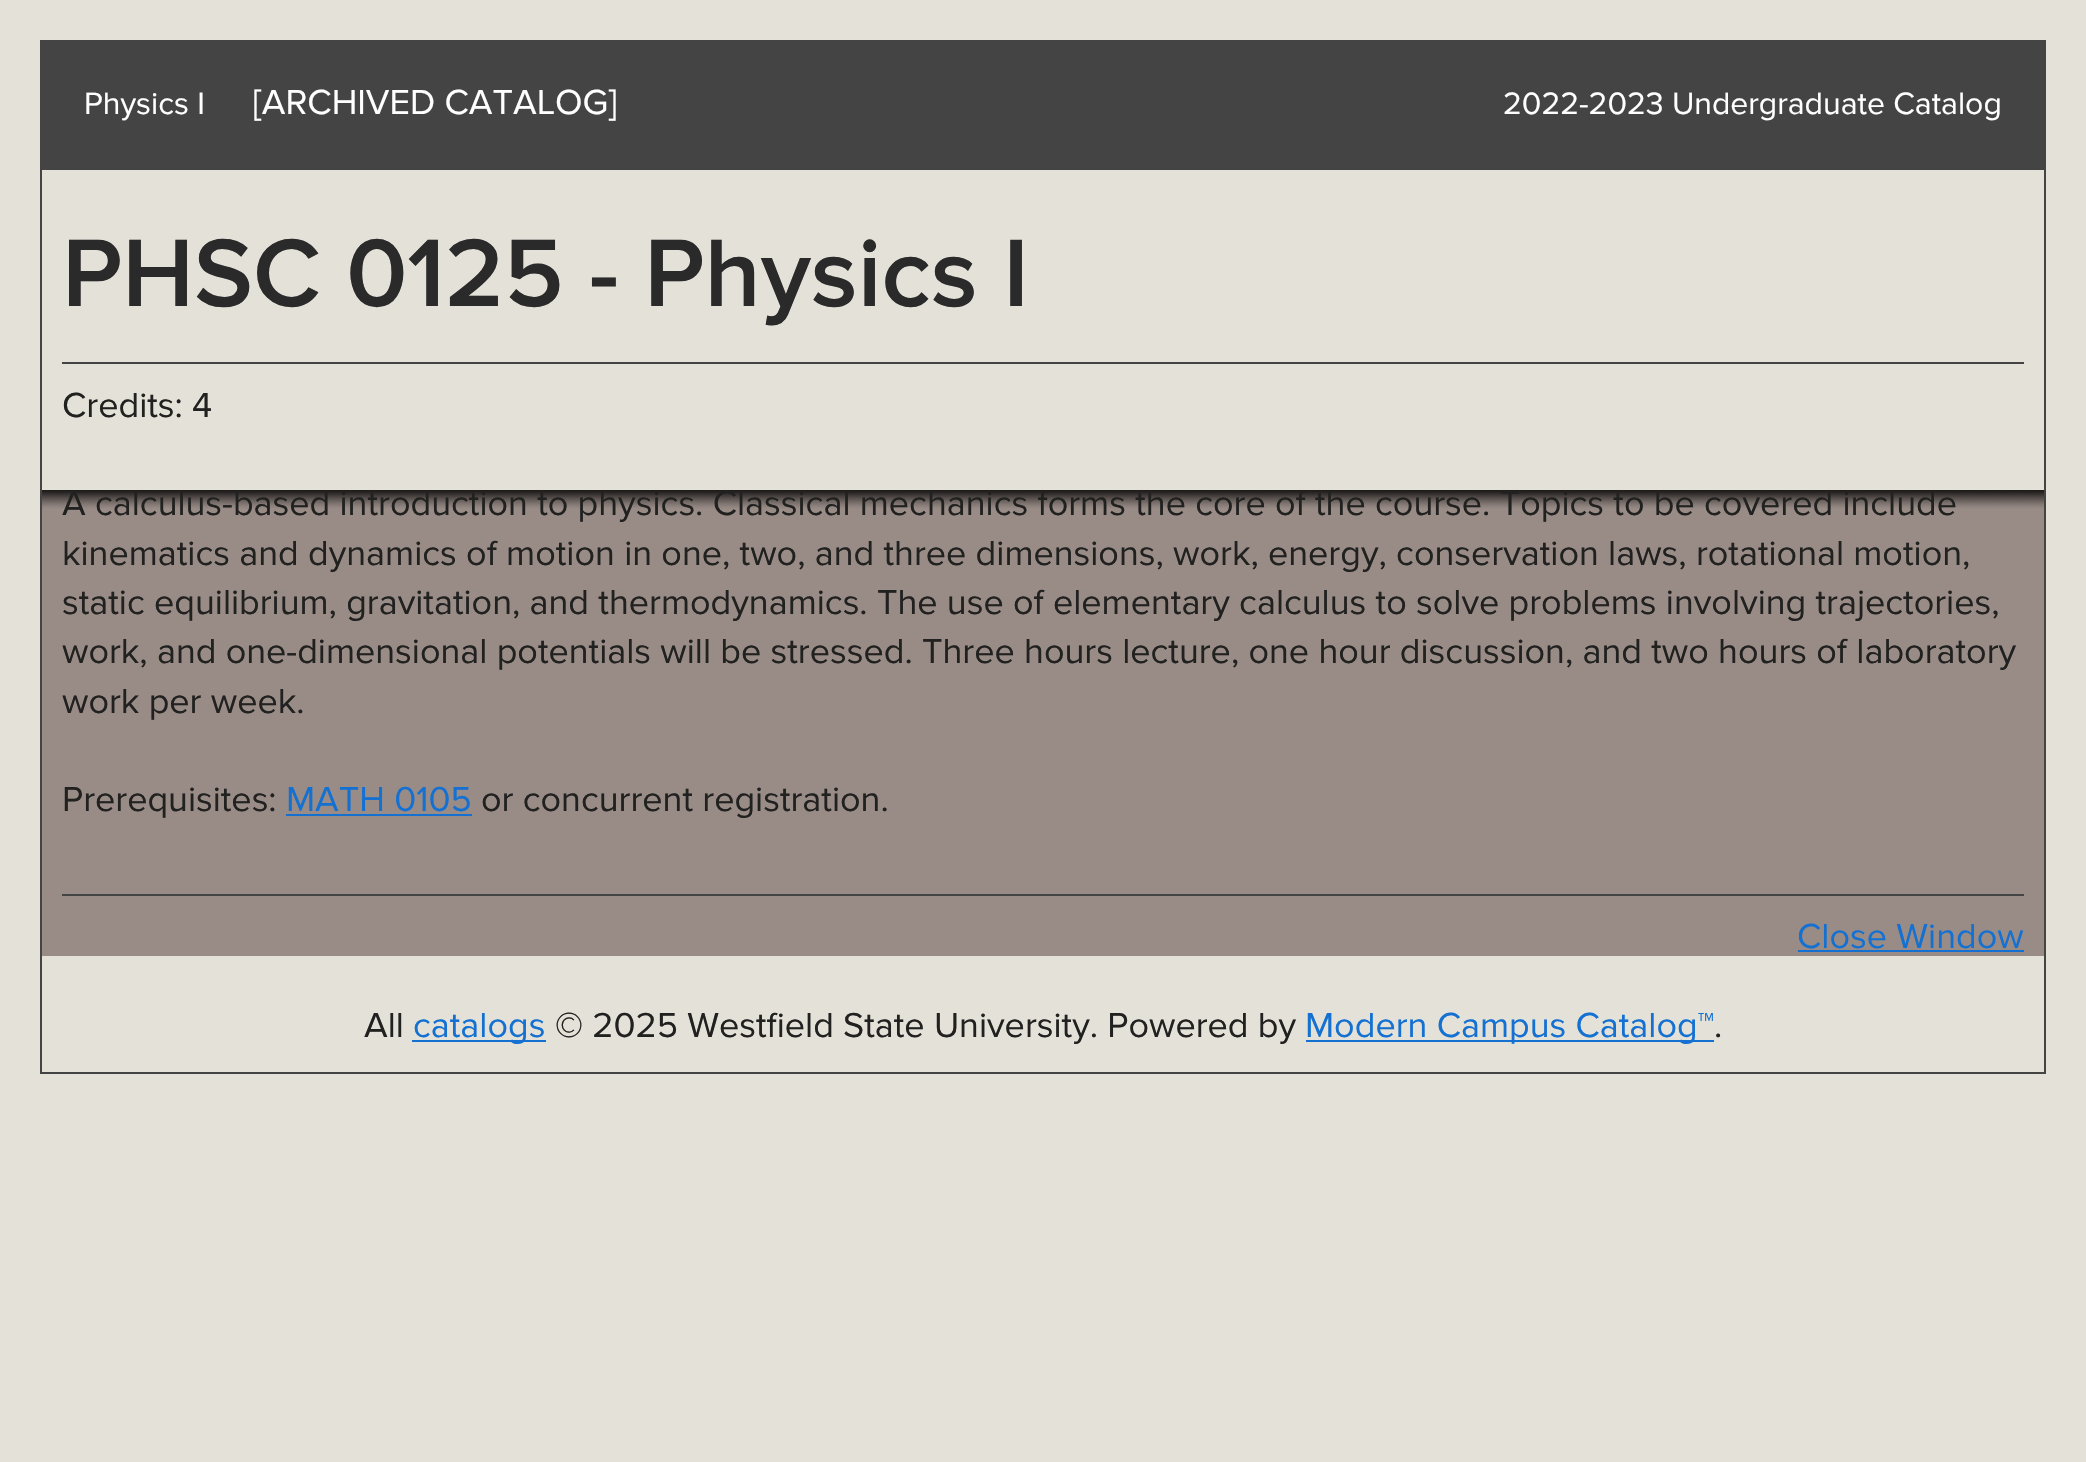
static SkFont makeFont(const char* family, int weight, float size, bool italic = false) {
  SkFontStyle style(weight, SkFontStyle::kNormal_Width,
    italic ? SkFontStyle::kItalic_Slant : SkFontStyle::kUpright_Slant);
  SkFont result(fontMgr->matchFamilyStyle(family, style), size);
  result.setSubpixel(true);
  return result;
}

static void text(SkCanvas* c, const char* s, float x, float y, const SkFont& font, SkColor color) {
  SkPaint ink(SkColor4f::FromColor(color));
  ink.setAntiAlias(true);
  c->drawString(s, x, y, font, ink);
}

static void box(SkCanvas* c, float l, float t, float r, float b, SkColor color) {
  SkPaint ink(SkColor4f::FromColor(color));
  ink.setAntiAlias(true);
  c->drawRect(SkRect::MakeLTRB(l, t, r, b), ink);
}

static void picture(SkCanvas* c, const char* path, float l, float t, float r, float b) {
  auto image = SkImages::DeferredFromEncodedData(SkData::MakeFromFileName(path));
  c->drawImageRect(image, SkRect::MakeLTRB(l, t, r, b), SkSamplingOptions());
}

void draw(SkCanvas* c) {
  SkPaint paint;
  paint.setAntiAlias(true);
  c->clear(0xffe4e1d8);
  picture(c, "img_01.png", 42, 490, 2044, 956);
  paint.setStyle(SkPaint::kStroke_Style);
  paint.setStrokeWidth(2);
  paint.setColor(0xff444444);
  c->drawRect(SkRect::MakeLTRB(41, 41, 2045, 1073), paint);
  box(c, 42, 42, 2044, 170, 0xff444444);
  SkFont face1 = makeFont("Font", 400, 32);
  text(c, "Physics I", 84, 114, face1, 0xffffffff);
  SkFont face2 = makeFont("Font", 400, 36);
  text(c, "[ARCHIVED CATALOG]", 253, 114, face2, 0xffffffff);
  text(c, "2022-2023 Undergraduate Catalog", 1503, 114, face1, 0xffffffff);
  SkFont face3 = makeFont("Proxima Nova", 600, 99.25f);
  text(c, "PHSC 0125 - Physics I", 62, 306, face3, 0xff2a2a2a);
  box(c, 62, 362, 2024, 364, 0xff444444);
  text(c, "Credits: 4", 62, 417, face2, 0xff212120);
  text(c, "A calculus-based introduction to physics. Classical mechanics forms the core of the course. Topics to be covered include", 62, 515, face2, 0xff212120);
  text(c, "kinematics and dynamics of motion in one, two, and three dimensions, work, energy, conservation laws, rotational motion,", 62, 565, face2, 0xff212120);
  text(c, "static equilibrium, gravitation, and thermodynamics. The use of elementary calculus to solve problems involving trajectories,", 62, 614, face2, 0xff212120);
  text(c, "work, and one-dimensional potentials will be stressed. Three hours lecture, one hour discussion, and two hours of laboratory", 62, 663, face2, 0xff212120);
  text(c, "work per week.", 62, 713, face2, 0xff212120);
  text(c, "Prerequisites:", 62, 811, face2, 0xff212120);
  text(c, "MATH 0105", 286, 811, face2, 0xff1471d2);
  box(c, 286, 814, 472, 816, 0xff1471d2);
  text(c, "or concurrent registration.", 481, 811, face2, 0xff212120);
  box(c, 62, 894, 2024, 896, 0xff444444);
  text(c, "Close Window", 1797, 948, face2, 0xff1471d2);
  box(c, 1798, 950, 2024, 952, 0xff1471d2);
  text(c, "All", 364, 1037, face2, 0xff212120);
  box(c, 412, 1040, 546, 1042, 0xff1471d2);
  text(c, "catalogs", 413, 1037, face2, 0xff1471d2);
  text(c, "© 2025 Westfield State University. Powered by", 555, 1037, face2, 0xff212120);
  box(c, 1306, 1040, 1714, 1042, 0xff1471d2);
  text(c, "Modern Campus Catalog™", 1305, 1037, face2, 0xff1471d2);
  text(c, ".", 1714, 1037, face2, 0xff212120);
}
